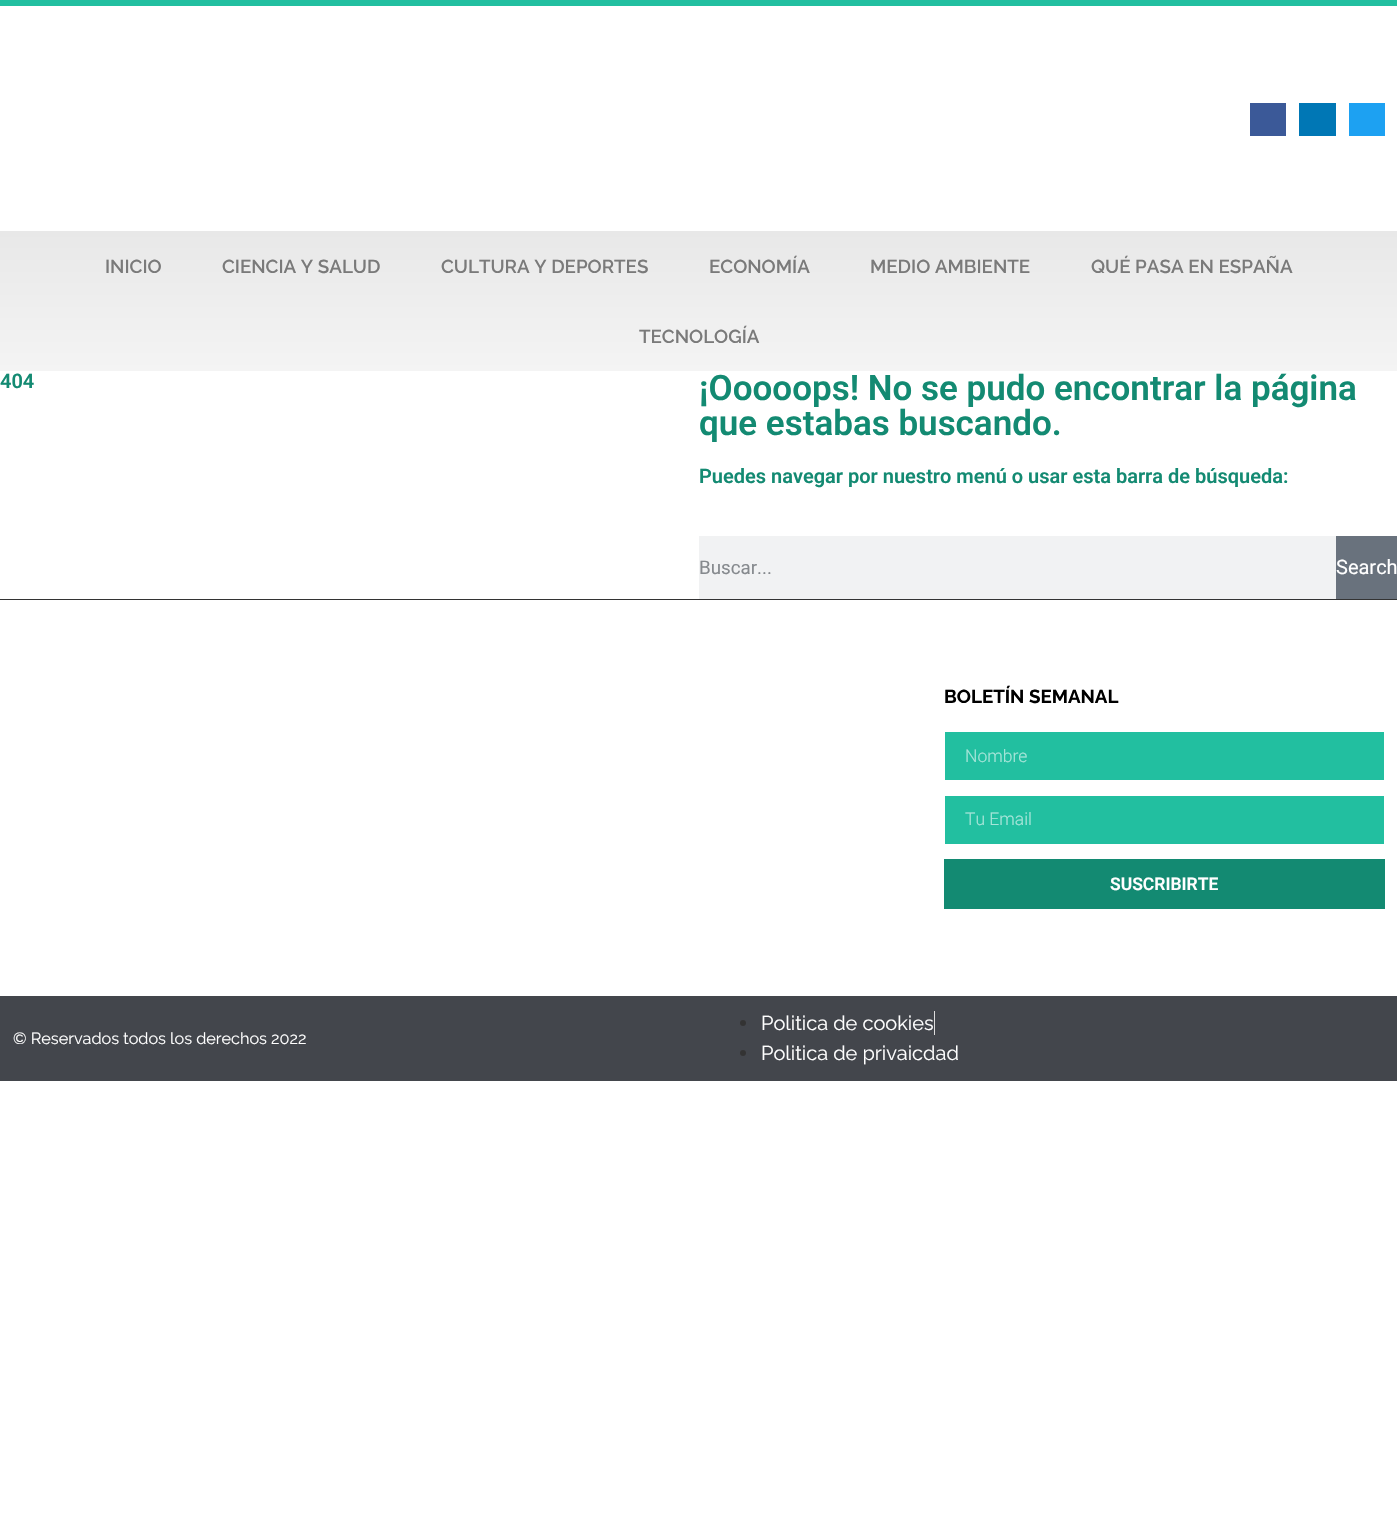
static SkFont makeFont(const char* family, int weight, float size, bool italic = false) {
  SkFontStyle style(weight, SkFontStyle::kNormal_Width,
    italic ? SkFontStyle::kItalic_Slant : SkFontStyle::kUpright_Slant);
  SkFont result(fontMgr->matchFamilyStyle(family, style), size);
  result.setSubpixel(true);
  return result;
}

static void text(SkCanvas* c, const char* s, float x, float y, const SkFont& font, SkColor color) {
  SkPaint ink(SkColor4f::FromColor(color));
  ink.setAntiAlias(true);
  c->drawString(s, x, y, font, ink);
}

static void box(SkCanvas* c, float l, float t, float r, float b, SkColor color) {
  SkPaint ink(SkColor4f::FromColor(color));
  ink.setAntiAlias(true);
  c->drawRect(SkRect::MakeLTRB(l, t, r, b), ink);
}

void draw(SkCanvas* c) {
  SkPaint paint;
  paint.setAntiAlias(true);
  c->clear(0xffffffff);
  box(c, 0, 0, 1397, 6, 0xff22bfa0);
  box(c, 1250, 103, 1286, 136, 0xff3b5998);
  box(c, 1299, 103, 1336, 136, 0xff0077b5);
  box(c, 1349, 103, 1385, 136, 0xff1da1f2);
  {
    const SkColor colors[] = {0xffe8e8e8, 0xfff4f4f4};
    const float stops[] = {0, 1};
    const SkPoint ends[] = {{699, 231}, {699, 371}};
    paint.setShader(SkGradientShader::MakeLinear(ends, colors, stops, 2, SkTileMode::kClamp));
    paint.setAlpha(255);
  }
  c->drawRect(SkRect::MakeLTRB(0, 231, 1397, 371), paint);
  SkFont face1 = makeFont("Raleway", 600, 18.75f);
  text(c, "INICIO", 105, 273, face1, 0xff7a7a7a);
  text(c, "CIENCIA Y SALUD", 222, 273, face1, 0xff7a7a7a);
  text(c, "CULTURA Y DEPORTES", 441, 273, face1, 0xff7a7a7a);
  text(c, "ECONOMÍA", 709, 273, face1, 0xff7a7a7a);
  text(c, "MEDIO AMBIENTE", 870, 273, face1, 0xff7a7a7a);
  text(c, "QUÉ PASA EN ESPAÑA", 1091, 273, face1, 0xff7a7a7a);
  text(c, "TECNOLOGÍA", 639, 343, face1, 0xff7a7a7a);
  SkFont face2 = makeFont("Roboto", 600, 20);
  text(c, "404", 0, 388, face2, 0xff138a72);
  SkFont face3 = makeFont("Roboto", 600, 35);
  text(c, "¡Ooooops! No se pudo encontrar la página", 699, 400, face3, 0xff138a72);
  text(c, "que estabas buscando.", 699, 435, face3, 0xff138a72);
  text(c, "Puedes navegar por nuestro menú o usar esta barra de búsqueda:", 699, 483, face2, 0xff138a72);
  box(c, 699, 536, 1336, 599, 0xfff1f2f3);
  SkFont face4 = makeFont("Roboto", 400, 18.75f);
  text(c, "Buscar...", 699, 574, face4, 0xff868a8e);
  box(c, 1336, 536, 1397, 599, 0xff69727d);
  SkFont face5 = makeFont("Roboto", 400, 20);
  text(c, "Search", 1336, 574, face5, 0xffffffff);
  box(c, 0, 599, 1397, 600, 0xff333333);
  SkFont face6 = makeFont("Raleway", 700, 18.75f);
  text(c, "BOLETÍN SEMANAL", 944, 703, face6, 0xff000000);
  box(c, 945, 732, 1384, 780, 0xff22bfa0);
  SkFont face7 = makeFont("Roboto", 300, 17.5f);
  text(c, "Nombre", 965, 762, face7, 0xffa7e5d9);
  box(c, 945, 796, 1384, 844, 0xff22bfa0);
  text(c, "Tu Email", 965, 825, face7, 0xffa7e5d9);
  box(c, 944, 859, 1385, 909, 0xff138a72);
  SkFont face8 = makeFont("Roboto", 600, 17.5f);
  text(c, "SUSCRIBIRTE", 1110, 890, face8, 0xffffffff);
  box(c, 0, 996, 1397, 1081, 0xff43464c);
  SkFont face9 = makeFont("Raleway", 400, 16.25f);
  text(c, "© Reservados todos los derechos 2022", 13, 1044, face9, 0xffffffff);
  paint.setShader(nullptr);
  paint.setColor(0xff333333);
  c->drawCircle(743, 1023, 3, paint);
  SkFont face10 = makeFont("Raleway", 400, 20);
  text(c, "Politica de cookies", 761, 1030, face10, 0xffffffff);
  box(c, 934, 1011, 935, 1035, 0xffdddddd);
  c->drawCircle(743, 1053, 3, paint);
  text(c, "Politica de privaicdad", 761, 1060, face10, 0xffffffff);
}
